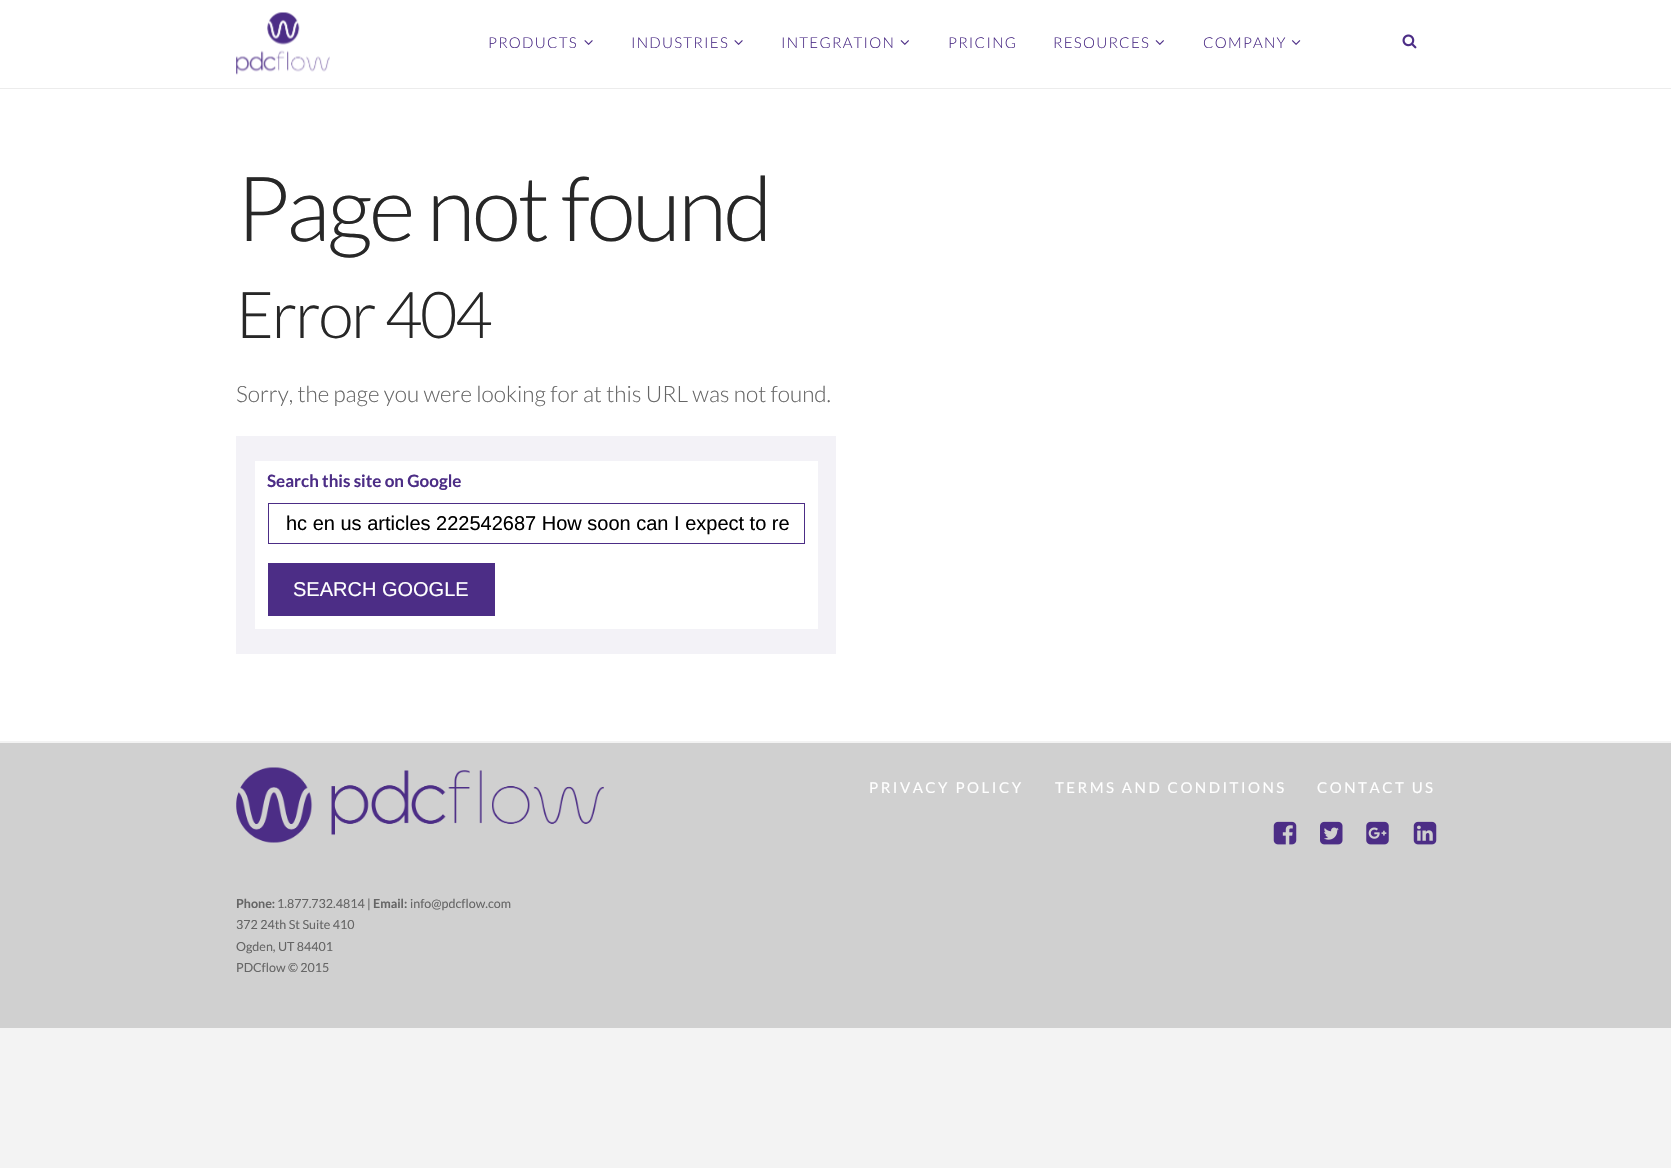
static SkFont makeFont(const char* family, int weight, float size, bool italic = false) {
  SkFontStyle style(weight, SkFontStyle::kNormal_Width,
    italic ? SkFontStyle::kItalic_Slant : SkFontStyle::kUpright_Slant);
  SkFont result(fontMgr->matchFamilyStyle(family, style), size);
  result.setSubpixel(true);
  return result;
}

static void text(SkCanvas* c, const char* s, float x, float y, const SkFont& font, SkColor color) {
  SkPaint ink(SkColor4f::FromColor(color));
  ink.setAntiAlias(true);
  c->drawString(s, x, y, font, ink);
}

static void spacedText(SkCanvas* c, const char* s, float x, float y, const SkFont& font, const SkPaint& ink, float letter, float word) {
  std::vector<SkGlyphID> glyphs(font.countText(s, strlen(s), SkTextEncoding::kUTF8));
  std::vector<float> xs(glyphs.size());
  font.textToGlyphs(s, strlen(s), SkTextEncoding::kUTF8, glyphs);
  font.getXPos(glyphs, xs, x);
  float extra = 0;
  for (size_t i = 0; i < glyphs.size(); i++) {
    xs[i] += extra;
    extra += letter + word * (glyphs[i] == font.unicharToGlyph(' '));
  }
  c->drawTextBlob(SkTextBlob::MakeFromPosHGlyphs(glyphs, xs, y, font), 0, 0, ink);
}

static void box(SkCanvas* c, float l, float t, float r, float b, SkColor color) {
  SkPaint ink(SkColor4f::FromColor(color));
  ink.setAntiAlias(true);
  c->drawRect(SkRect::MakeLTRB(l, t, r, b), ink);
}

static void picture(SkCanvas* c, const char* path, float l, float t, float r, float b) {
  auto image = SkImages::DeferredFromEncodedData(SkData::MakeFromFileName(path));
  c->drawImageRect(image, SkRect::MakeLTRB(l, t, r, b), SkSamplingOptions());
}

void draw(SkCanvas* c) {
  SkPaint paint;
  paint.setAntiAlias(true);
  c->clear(0xfff3f3f3);
  box(c, 0, 0, 1671, 88, 0xffffffff);
  box(c, 0, 88, 1671, 89, 0xffececec);
  picture(c, "img_01.png", 236, 12, 330, 75);
  SkFont face1 = makeFont("Lato", 300, 15);
  paint.setColor(0xff4c2d86);
  spacedText(c, "PRODUCTS", 488, 48, face1, paint, 1.25f, 0);
  picture(c, "img_02.png", 584, 40, 593, 45);
  spacedText(c, "INDUSTRIES", 631, 48, face1, paint, 1.25f, 0);
  picture(c, "img_02.png", 734, 40, 743, 45);
  spacedText(c, "INTEGRATION", 781, 48, face1, paint, 1.25f, 0);
  picture(c, "img_03.png", 900, 40, 909, 45);
  spacedText(c, "PRICING", 948, 48, face1, paint, 1.25f, 0);
  spacedText(c, "RESOURCES", 1053, 48, face1, paint, 1.25f, 0);
  picture(c, "img_03.png", 1155, 40, 1164, 45);
  spacedText(c, "COMPANY", 1203, 48, face1, paint, 1.25f, 0);
  picture(c, "img_04.png", 1291, 40, 1301, 45);
  picture(c, "img_05.png", 1402, 34, 1417, 49);
  box(c, 0, 89, 1671, 741, 0xffffffff);
  SkFont face2 = makeFont("Lato", 300, 90);
  paint.setColor(0xff272727);
  spacedText(c, "Page not found", 236, 241, face2, paint, -3.1f, 0);
  SkFont face3 = makeFont("Lato", 300, 64.5f);
  spacedText(c, "Error 404", 236, 338, face3, paint, -2.25f, 0);
  SkFont face4 = makeFont("Lato", 300, 22.5f);
  text(c, "Sorry, the page you were looking for at this URL was not found.", 236, 402, face4, 0xff666666);
  box(c, 236, 436, 836, 654, 0xfff3f2f7);
  box(c, 255, 461, 818, 629, 0xffffffff);
  SkFont face5 = makeFont("Lato", 700, 17);
  text(c, "Search this site on Google", 267, 487, face5, 0xff4c2d86);
  paint.setStyle(SkPaint::kStroke_Style);
  paint.setStrokeWidth(1);
  paint.setColor(0xff4c2d86);
  c->drawRect(SkRect::MakeLTRB(268.5f, 503.5f, 804.5f, 543.5f), paint);
  SkFont face6 = makeFont("Liberation Sans", 400, 20);
  text(c, "hc en us articles 222542687 How soon can I expect to re", 286, 530, face6, 0xff000000);
  box(c, 268, 563, 495, 616, 0xff4c2d86);
  text(c, "SEARCH GOOGLE", 293, 596, face6, 0xffffffff);
  box(c, 0, 743, 1671, 1028, 0xffd0d0d0);
  SkFont face7 = makeFont("Lato", 400, 15);
  paint.setStyle(SkPaint::kFill_Style);
  paint.setColor(0xffffffff);
  spacedText(c, "PRIVACY POLICY", 869, 793, face7, paint, 2.5f, 0);
  spacedText(c, "TERMS AND CONDITIONS", 1055, 793, face7, paint, 2.5f, 0);
  spacedText(c, "CONTACT US", 1317, 793, face7, paint, 2.5f, 0);
  picture(c, "img_06.png", 1273, 821, 1297, 845);
  picture(c, "img_07.png", 1320, 821, 1343, 845);
  picture(c, "img_08.png", 1366, 821, 1389, 845);
  picture(c, "img_09.png", 1413, 821, 1437, 845);
  picture(c, "img_10.png", 236, 767, 604, 843);
  SkFont face8 = makeFont("Lato", 700, 12.5f);
  text(c, "Phone:", 236, 908, face8, 0xff666666);
  SkFont face9 = makeFont("Lato", 400, 12.5f);
  text(c, "1.877.732.4814 |", 277, 908, face9, 0xff666666);
  text(c, "Email:", 373, 908, face8, 0xff666666);
  text(c, "info@pdcflow.com", 410, 908, face9, 0xff666666);
  text(c, "372 24th St Suite 410", 236, 929, face9, 0xff666666);
  text(c, "Ogden, UT 84401", 236, 951, face9, 0xff666666);
  text(c, "PDCflow © 2015", 236, 972, face9, 0xff666666);
}
